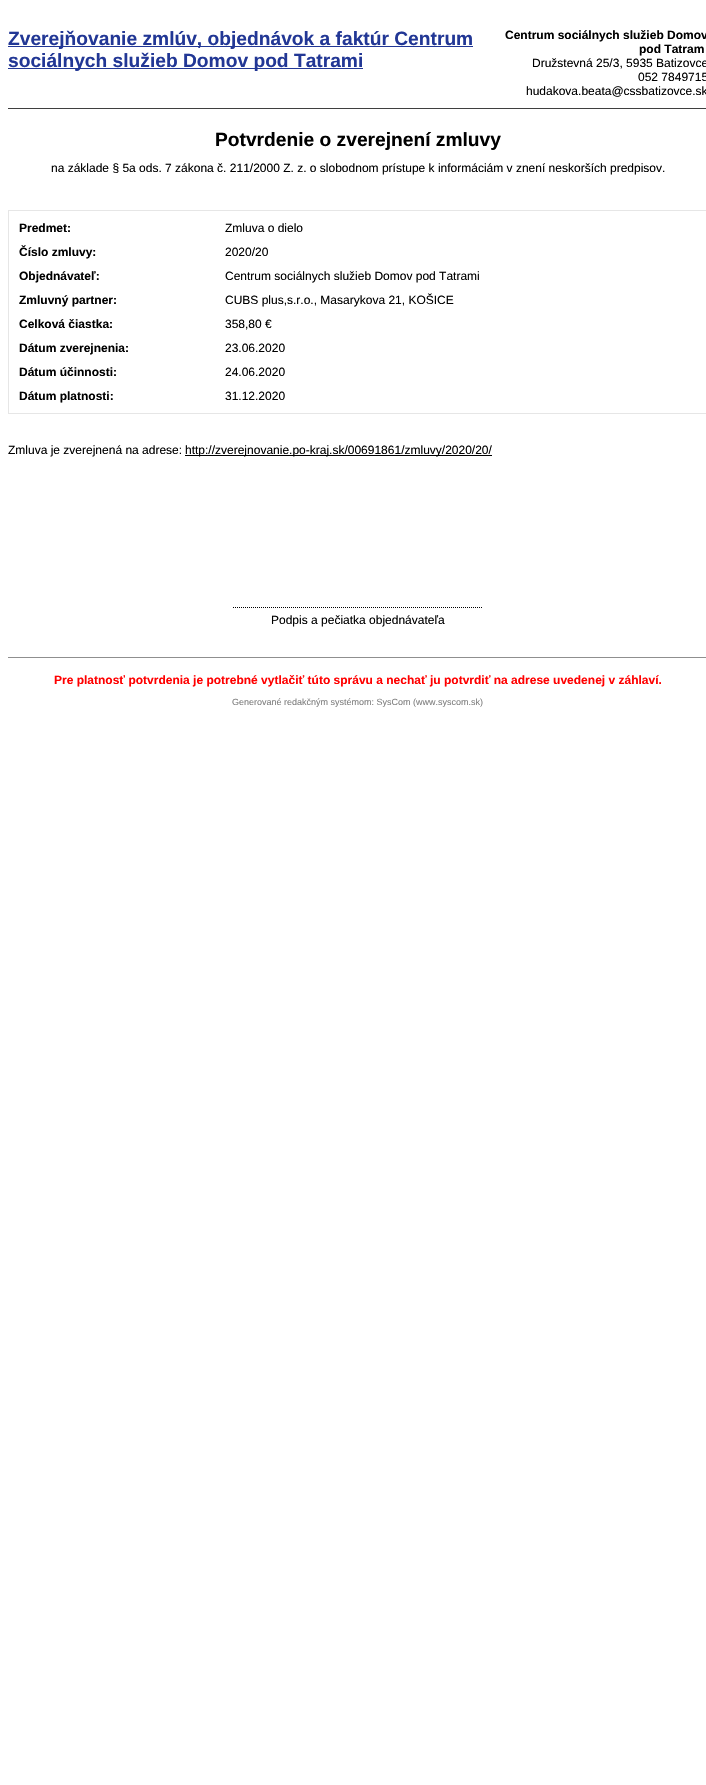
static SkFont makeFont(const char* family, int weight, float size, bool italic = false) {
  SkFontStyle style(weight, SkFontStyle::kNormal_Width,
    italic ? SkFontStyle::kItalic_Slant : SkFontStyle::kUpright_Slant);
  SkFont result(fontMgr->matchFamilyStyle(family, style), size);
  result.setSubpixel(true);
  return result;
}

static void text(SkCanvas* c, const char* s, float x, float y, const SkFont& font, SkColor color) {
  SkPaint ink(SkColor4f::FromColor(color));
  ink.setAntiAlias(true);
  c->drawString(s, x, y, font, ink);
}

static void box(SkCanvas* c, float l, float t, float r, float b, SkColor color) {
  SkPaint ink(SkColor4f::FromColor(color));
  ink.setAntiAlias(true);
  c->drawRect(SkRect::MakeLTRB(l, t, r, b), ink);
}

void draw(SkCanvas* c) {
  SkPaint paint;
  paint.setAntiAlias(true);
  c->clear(0xffffffff);
  box(c, 8, 108, 706, 109, 0xff3f3f3f);
  box(c, 8, 46, 473, 47, 0xff223795);
  SkFont face1 = makeFont("Liberation Sans", 700, 19.2f);
  text(c, "Zverejňovanie zmlúv, objednávok a faktúr Centrum", 8, 45, face1, 0xff223795);
  box(c, 8, 68, 363, 69, 0xff223795);
  text(c, "sociálnych služieb Domov pod Tatrami", 8, 67, face1, 0xff223795);
  SkFont face2 = makeFont("Liberation Sans", 700, 12);
  text(c, "Centrum sociálnych služieb Domov", 505, 39, face2, 0xff000000);
  text(c, "pod Tatram", 639, 53, face2, 0xff000000);
  SkFont face3 = makeFont("Liberation Sans", 400, 12);
  text(c, "Družstevná 25/3, 5935 Batizovce", 532, 67, face3, 0xff000000);
  text(c, "052 7849715", 638, 81, face3, 0xff000000);
  text(c, "hudakova.beata@cssbatizovce.sk", 526, 95, face3, 0xff000000);
  text(c, "Potvrdenie o zverejnení zmluvy", 215, 146, face1, 0xff000000);
  text(c, "na základe § 5a ods. 7 zákona č. 211/2000 Z. z. o slobodnom prístupe k informáciám v znení neskorších predpisov.", 51, 172, face3, 0xff000000);
  paint.setStyle(SkPaint::kStroke_Style);
  paint.setStrokeWidth(1);
  paint.setColor(0xffe6e6e6);
  c->drawRect(SkRect::MakeLTRB(8.5f, 210.5f, 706.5f, 413.5f), paint);
  text(c, "Predmet:", 19, 232, face2, 0xff000000);
  text(c, "Zmluva o dielo", 225, 232, face3, 0xff000000);
  text(c, "Číslo zmluvy:", 19, 256, face2, 0xff000000);
  text(c, "2020/20", 225, 256, face3, 0xff000000);
  text(c, "Objednávateľ:", 19, 280, face2, 0xff000000);
  text(c, "Centrum sociálnych služieb Domov pod Tatrami", 225, 280, face3, 0xff000000);
  text(c, "Zmluvný partner:", 19, 304, face2, 0xff000000);
  text(c, "CUBS plus,s.r.o., Masarykova 21, KOŠICE", 225, 304, face3, 0xff000000);
  text(c, "Celková čiastka:", 19, 328, face2, 0xff000000);
  text(c, "358,80 €", 225, 328, face3, 0xff000000);
  text(c, "Dátum zverejnenia:", 19, 352, face2, 0xff000000);
  text(c, "23.06.2020", 225, 352, face3, 0xff000000);
  text(c, "Dátum účinnosti:", 19, 376, face2, 0xff000000);
  text(c, "24.06.2020", 225, 376, face3, 0xff000000);
  text(c, "Dátum platnosti:", 19, 400, face2, 0xff000000);
  text(c, "31.12.2020", 225, 400, face3, 0xff000000);
  text(c, "Zmluva je zverejnená na adrese:", 8, 454, face3, 0xff000000);
  box(c, 185, 455, 492, 456, 0xff000000);
  text(c, "http://zverejnovanie.po-kraj.sk/00691861/zmluvy/2020/20/", 185, 454, face3, 0xff000000);
  paint.setColor(0xff000000);
  paint.setPathEffect(SkDashPathEffect::Make({{1, 1}}, 0));
  c->drawPath(SkPathBuilder().moveTo(233, 607.5f).lineTo(483, 607.5f).detach(), paint);
  paint.setPathEffect(nullptr);
  text(c, "Podpis a pečiatka objednávateľa", 271, 624, face3, 0xff000000);
  box(c, 8, 657, 706, 658, 0xff8f8f8f);
  text(c, "Pre platnosť potvrdenia je potrebné vytlačiť túto správu a nechať ju potvrdiť na adrese uvedenej v záhlaví.", 54, 684, face2, 0xffff0000);
  SkFont face4 = makeFont("Liberation Sans", 400, 9);
  text(c, "Generované redakčným systémom: SysCom (www.syscom.sk)", 232, 705, face4, 0xff7f7f7f);
}
